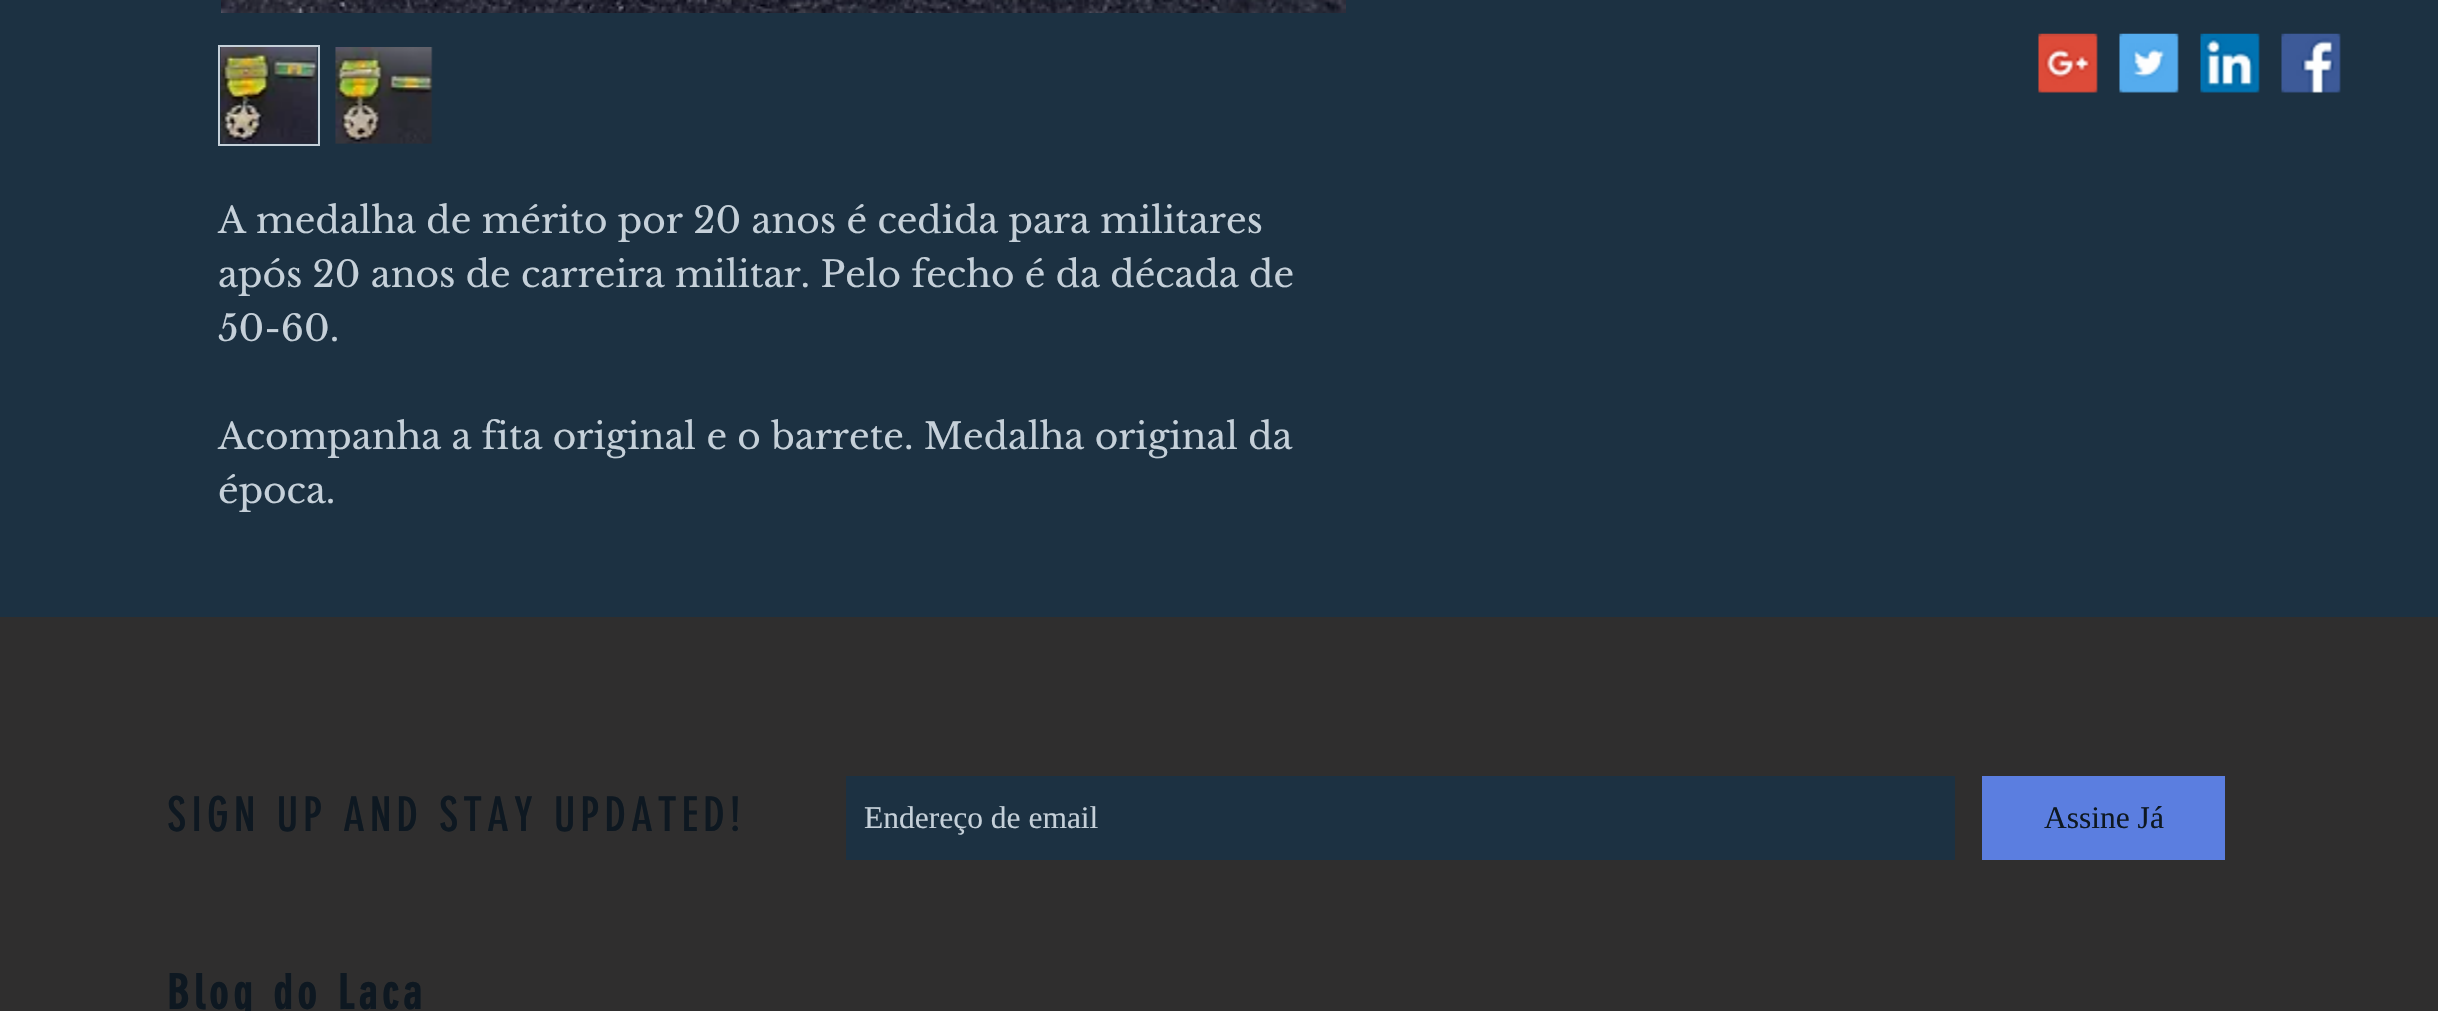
static SkFont makeFont(const char* family, int weight, float size, bool italic = false) {
  SkFontStyle style(weight, SkFontStyle::kNormal_Width,
    italic ? SkFontStyle::kItalic_Slant : SkFontStyle::kUpright_Slant);
  SkFont result(fontMgr->matchFamilyStyle(family, style), size);
  result.setSubpixel(true);
  return result;
}

static void text(SkCanvas* c, const char* s, float x, float y, const SkFont& font, SkColor color) {
  SkPaint ink(SkColor4f::FromColor(color));
  ink.setAntiAlias(true);
  c->drawString(s, x, y, font, ink);
}

static void spacedText(SkCanvas* c, const char* s, float x, float y, const SkFont& font, const SkPaint& ink, float letter, float word) {
  std::vector<SkGlyphID> glyphs(font.countText(s, strlen(s), SkTextEncoding::kUTF8));
  std::vector<float> xs(glyphs.size());
  font.textToGlyphs(s, strlen(s), SkTextEncoding::kUTF8, glyphs);
  font.getXPos(glyphs, xs, x);
  float extra = 0;
  for (size_t i = 0; i < glyphs.size(); i++) {
    xs[i] += extra;
    extra += letter + word * (glyphs[i] == font.unicharToGlyph(' '));
  }
  c->drawTextBlob(SkTextBlob::MakeFromPosHGlyphs(glyphs, xs, y, font), 0, 0, ink);
}

static void box(SkCanvas* c, float l, float t, float r, float b, SkColor color) {
  SkPaint ink(SkColor4f::FromColor(color));
  ink.setAntiAlias(true);
  c->drawRect(SkRect::MakeLTRB(l, t, r, b), ink);
}

static void picture(SkCanvas* c, const char* path, float l, float t, float r, float b) {
  auto image = SkImages::DeferredFromEncodedData(SkData::MakeFromFileName(path));
  c->drawImageRect(image, SkRect::MakeLTRB(l, t, r, b), SkSamplingOptions());
}

void draw(SkCanvas* c) {
  SkPaint paint;
  paint.setAntiAlias(true);
  c->clear(0xff1c3142);
  picture(c, "img_01.png", 2038, 33, 2098, 93);
  picture(c, "img_02.png", 2119, 33, 2179, 93);
  picture(c, "img_03.png", 2200, 33, 2260, 93);
  picture(c, "img_04.png", 2281, 33, 2341, 93);
  picture(c, "img_05.png", 221, 0, 1346, 13);
  paint.setStyle(SkPaint::kStroke_Style);
  paint.setStrokeWidth(2);
  paint.setColor(0xffc5d0d9);
  c->drawRect(SkRect::MakeLTRB(219, 46, 319, 145), paint);
  picture(c, "img_06.png", 220, 47, 318, 144);
  picture(c, "img_07.png", 335, 47, 433, 144);
  SkFont face1 = makeFont("Libre Baskerville", 400, 36);
  text(c, "A medalha de mérito por 20 anos é cedida para militares", 218, 233, face1, 0xffc5d0d9);
  text(c, "após 20 anos de carreira militar. Pelo fecho é da década de", 218, 287, face1, 0xffc5d0d9);
  text(c, "50-60.", 218, 341, face1, 0xffc5d0d9);
  text(c, "Acompanha a fita original e o barrete. Medalha original da", 218, 449, face1, 0xffc5d0d9);
  text(c, "época.", 218, 503, face1, 0xffc5d0d9);
  box(c, 0, 617, 2438, 1011, 0xff2f2e2e);
  SkFont face2 = makeFont("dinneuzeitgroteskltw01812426", 400, 47.25f);
  paint.setStyle(SkPaint::kFill_Style);
  paint.setColor(0xff0e1821);
  spacedText(c, "SIGN UP AND STAY UPDATED!", 167, 831, face2, paint, 4.75f, 0);
  box(c, 846, 776, 1955, 860, 0xff1c3142);
  SkFont face3 = makeFont("Liberation Serif", 400, 31.5f);
  text(c, "Endereço de email", 864, 828, face3, 0xffc5d0d9);
  box(c, 1982, 776, 2225, 860, 0xff5b7ee0);
  text(c, "Assine Já", 2044, 828, face3, 0xff0e1821);
  SkFont face4 = makeFont("dinneuzeitgroteskltw01812426", 700, 47.25f);
  spacedText(c, "Blog do Laca", 167, 1009, face4, paint, 4.75f, 0);
}
